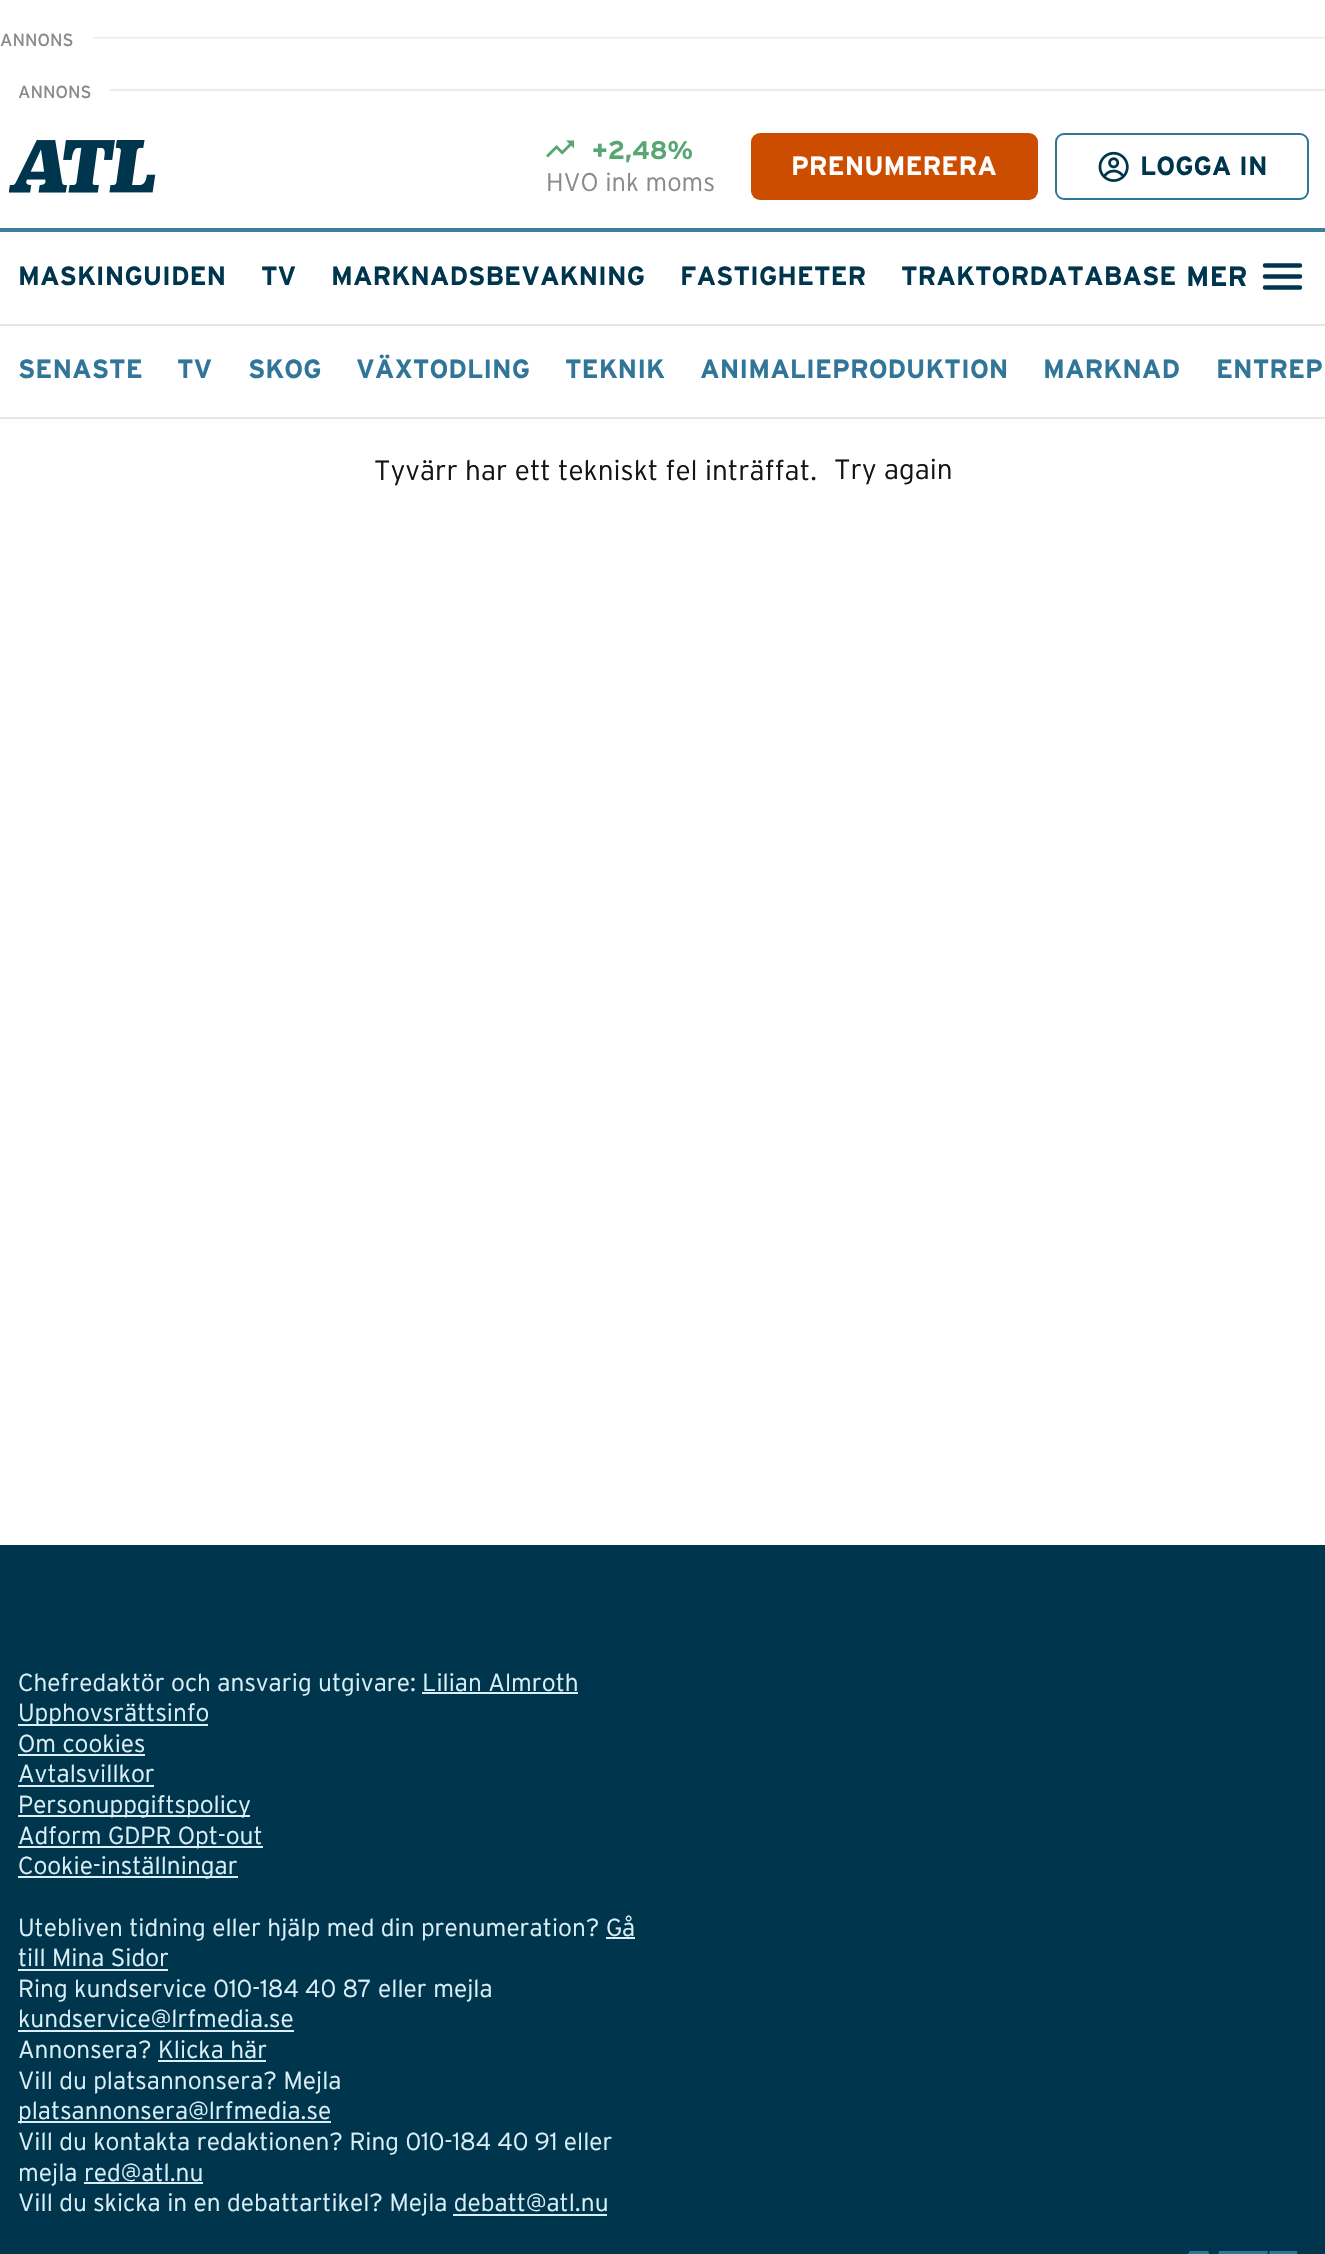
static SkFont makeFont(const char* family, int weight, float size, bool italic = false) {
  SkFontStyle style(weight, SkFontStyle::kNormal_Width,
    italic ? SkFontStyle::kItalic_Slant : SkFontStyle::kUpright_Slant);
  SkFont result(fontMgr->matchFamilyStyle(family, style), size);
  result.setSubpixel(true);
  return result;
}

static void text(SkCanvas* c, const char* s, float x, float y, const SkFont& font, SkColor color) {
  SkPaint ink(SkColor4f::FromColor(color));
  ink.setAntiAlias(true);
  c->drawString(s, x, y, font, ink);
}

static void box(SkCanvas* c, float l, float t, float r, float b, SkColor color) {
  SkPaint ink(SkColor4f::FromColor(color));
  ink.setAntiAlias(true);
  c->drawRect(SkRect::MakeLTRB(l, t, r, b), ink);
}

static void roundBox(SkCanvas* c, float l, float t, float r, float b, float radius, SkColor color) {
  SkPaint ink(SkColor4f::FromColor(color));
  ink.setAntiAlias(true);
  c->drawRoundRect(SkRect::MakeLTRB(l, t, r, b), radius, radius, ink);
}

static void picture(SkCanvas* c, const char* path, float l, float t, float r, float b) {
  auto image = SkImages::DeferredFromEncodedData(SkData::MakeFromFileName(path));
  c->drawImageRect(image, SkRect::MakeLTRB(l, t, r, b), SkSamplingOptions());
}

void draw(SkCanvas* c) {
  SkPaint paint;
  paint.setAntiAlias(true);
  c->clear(0xffffffff);
  {
    const SkColor colors[] = {0xffffffff, 0xffe6e6e6, 0xffffffff};
    const float stops[] = {0.5f, 0.6f, 0.6f};
    const SkPoint ends[] = {{756, 53}, {756, 26}};
    paint.setShader(SkGradientShader::MakeLinear(ends, colors, stops, 3, SkTileMode::kClamp));
    paint.setAlpha(255);
  }
  c->drawRect(SkRect::MakeLTRB(93, 37, 1325, 39), paint);
  SkFont face1 = makeFont("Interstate", 400, 17.5f);
  text(c, "ANNONS", 0, 46, face1, 0xff8a8a8d);
  {
    const SkColor colors[] = {0xffffffff, 0xffe6e6e6, 0xffffffff};
    const float stops[] = {0.5f, 0.6f, 0.6f};
    const SkPoint ends[] = {{765, 105}, {765, 79}};
    paint.setShader(SkGradientShader::MakeLinear(ends, colors, stops, 3, SkTileMode::kClamp));
    paint.setAlpha(255);
  }
  c->drawRect(SkRect::MakeLTRB(110, 89, 1325, 92), paint);
  text(c, "ANNONS", 18, 98, face1, 0xff8a8a8d);
  box(c, 0, 228, 1325, 232, 0xff3f7d9d);
  picture(c, "img_01.png", 9, 140, 156, 193);
  picture(c, "img_02.png", 546, 140, 574, 158);
  SkFont face2 = makeFont("Interstate", 700, 25.5f);
  text(c, "+2,48%", 592, 159, face2, 0xff57a773);
  SkFont face3 = makeFont("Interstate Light", 300, 25.5f);
  text(c, "HVO ink moms", 546, 191, face3, 0xff8a8a8d);
  roundBox(c, 751, 133, 1038, 200, 9, 0xffcd4d00);
  SkFont face4 = makeFont("Interstate", 700, 26.25f);
  text(c, "PRENUMERERA", 791, 175, face4, 0xffffffff);
  paint.setStyle(SkPaint::kStroke_Style);
  paint.setStrokeWidth(2);
  paint.setShader(nullptr);
  paint.setColor(0xff317598);
  c->drawRoundRect(SkRect::MakeLTRB(1056, 134, 1308, 199), 8, 8, paint);
  picture(c, "img_03.png", 1098, 151, 1129, 182);
  text(c, "LOGGA IN", 1140, 175, face4, 0xff00354e);
  box(c, 0, 324, 1325, 326, 0xffe6e6e6);
  text(c, "MASKINGUIDEN", 18, 285, face4, 0xff00354e);
  text(c, "TV", 261, 285, face4, 0xff00354e);
  text(c, "MARKNADSBEVAKNING", 331, 285, face4, 0xff00354e);
  text(c, "FASTIGHETER", 680, 285, face4, 0xff00354e);
  text(c, "TRAKTORDATABASE", 901, 285, face4, 0xff00354e);
  SkFont face5 = makeFont("Interstate", 700, 28);
  text(c, "MER", 1186, 286, face5, 0xff00354e);
  paint.setStrokeWidth(4.4f);
  paint.setStrokeCap(SkPaint::kRound_Cap);
  paint.setColor(0xff00354e);
  c->drawPath(SkPathBuilder().moveTo(1265, 265.5f).lineTo(1300, 265.5f).moveTo(1265, 276.5f).lineTo(1300, 276.5f).moveTo(1265, 287.5f).lineTo(1300, 287.5f).detach(), paint);
  box(c, 0, 417, 1325, 419, 0xffe6e6e6);
  text(c, "SENASTE", 18, 378, face4, 0xff317598);
  text(c, "TV", 177, 378, face4, 0xff317598);
  text(c, "SKOG", 248, 378, face4, 0xff317598);
  text(c, "VÄXTODLING", 356, 378, face4, 0xff317598);
  text(c, "TEKNIK", 565, 378, face4, 0xff317598);
  text(c, "ANIMALIEPRODUKTION", 700, 378, face4, 0xff317598);
  text(c, "MARKNAD", 1043, 378, face4, 0xff317598);
  text(c, "ENTREP", 1216, 378, face4, 0xff317598);
  SkFont face6 = makeFont("Interstate Light", 300, 28);
  text(c, "Tyvärr har ett tekniskt fel inträffat.", 374, 480, face6, 0xff141414);
  text(c, "Try again", 834, 479, face6, 0xff141414);
  box(c, 0, 1545, 1325, 2254, 0xff00354e);
  SkFont face7 = makeFont("Interstate Light", 300, 24.5f);
  text(c, "Chefredaktör och ansvarig utgivare: Lilian Almroth", 18, 1691, face7, 0xffdbf0f6);
  box(c, 422, 1692, 578, 1694, 0xffdbf0f6);
  box(c, 18, 1724, 208, 1726, 0xffdbf0f6);
  text(c, "Upphovsrättsinfo", 18, 1721, face7, 0xffdbf0f6);
  text(c, "Om cookies", 18, 1752, face7, 0xffdbf0f6);
  box(c, 18, 1754, 145, 1756, 0xffdbf0f6);
  text(c, "Avtalsvillkor", 18, 1782, face7, 0xffdbf0f6);
  box(c, 18, 1785, 154, 1787, 0xffdbf0f6);
  box(c, 18, 1815, 250, 1817, 0xffdbf0f6);
  text(c, "Personuppgiftspolicy", 18, 1813, face7, 0xffdbf0f6);
  box(c, 18, 1846, 263, 1848, 0xffdbf0f6);
  text(c, "Adform GDPR Opt-out", 18, 1844, face7, 0xffdbf0f6);
  box(c, 18, 1876, 238, 1878, 0xffdbf0f6);
  text(c, "Cookie-inställningar", 18, 1874, face7, 0xffdbf0f6);
  text(c, "Utebliven tidning eller hjälp med din prenumeration? Gå", 18, 1936, face7, 0xffdbf0f6);
  text(c, "till Mina Sidor", 18, 1966, face7, 0xffdbf0f6);
  box(c, 606, 1937, 635, 1939, 0xffdbf0f6);
  box(c, 18, 1969, 168, 1971, 0xffdbf0f6);
  text(c, "Ring kundservice 010-184 40 87 eller mejla", 18, 1997, face7, 0xffdbf0f6);
  text(c, "kundservice@lrfmedia.se", 18, 2027, face7, 0xffdbf0f6);
  box(c, 18, 2030, 294, 2032, 0xffdbf0f6);
  text(c, "Annonsera? Klicka här", 18, 2058, face7, 0xffdbf0f6);
  box(c, 158, 2060, 266, 2062, 0xffdbf0f6);
  text(c, "Vill du platsannonsera? Mejla", 18, 2089, face7, 0xffdbf0f6);
  box(c, 18, 2121, 331, 2123, 0xffdbf0f6);
  text(c, "platsannonsera@lrfmedia.se", 18, 2119, face7, 0xffdbf0f6);
  text(c, "Vill du kontakta redaktionen? Ring 010-184 40 91 eller", 18, 2150, face7, 0xffdbf0f6);
  text(c, "mejla red@atl.nu", 18, 2181, face7, 0xffdbf0f6);
  box(c, 84, 2182, 203, 2184, 0xffdbf0f6);
  text(c, "Vill du skicka in en debattartikel? Mejla debatt@atl.nu", 18, 2211, face7, 0xffdbf0f6);
  box(c, 453, 2214, 607, 2216, 0xffdbf0f6);
  picture(c, "img_04.png", 1188, 2251, 1298, 2254);
}
